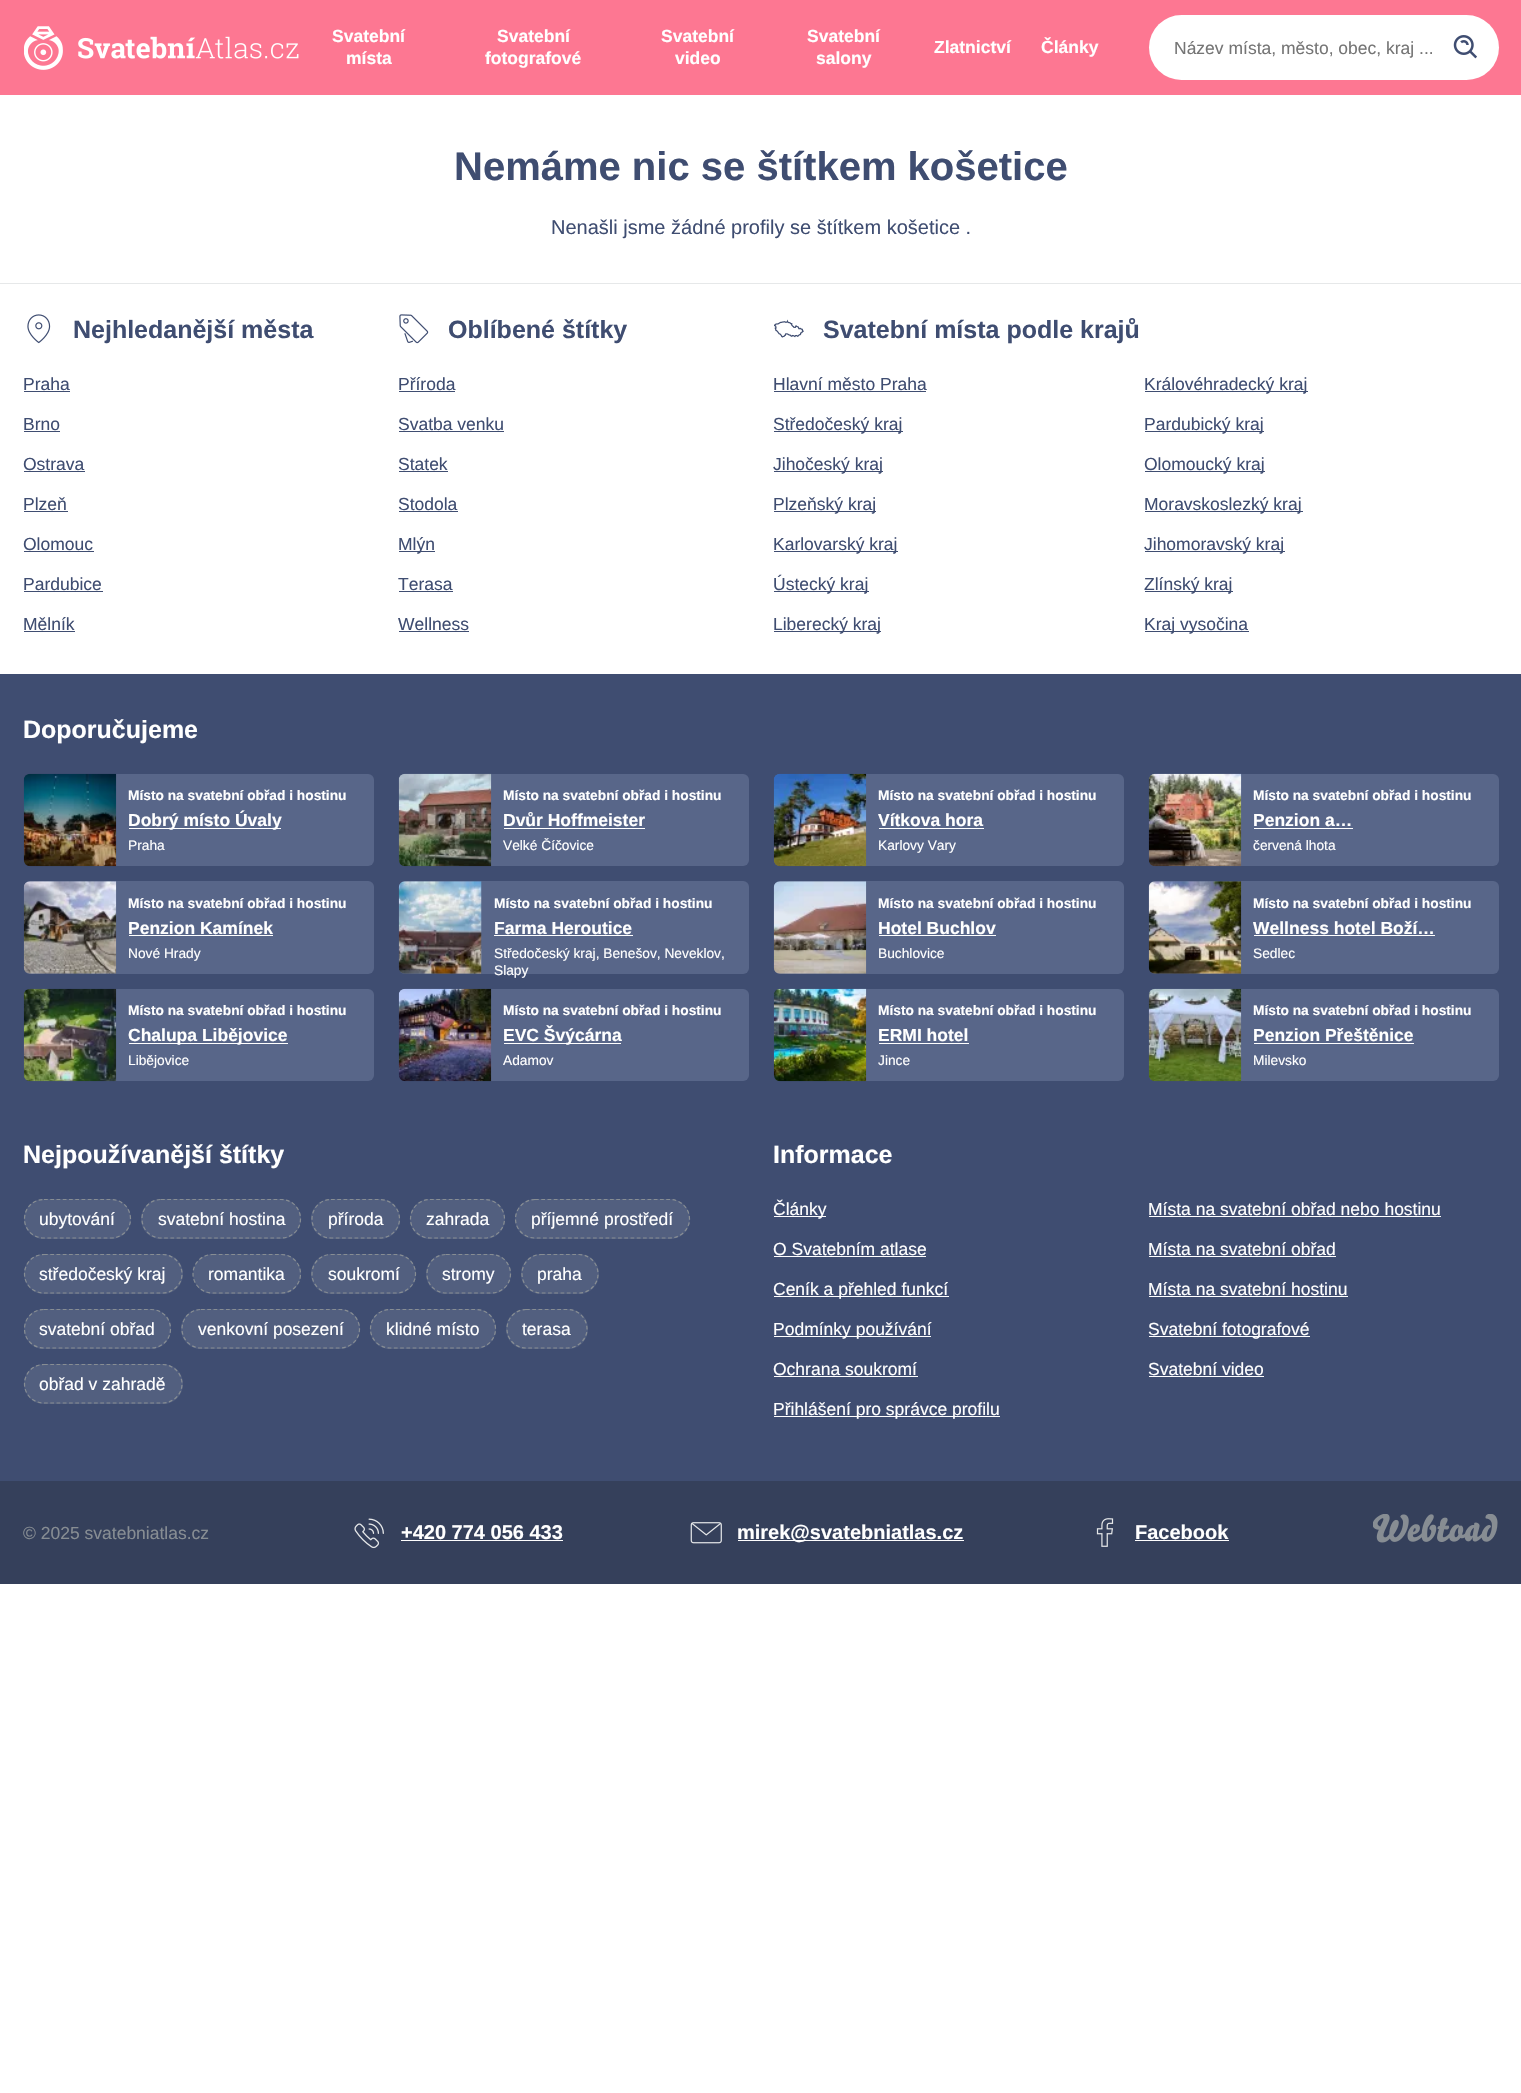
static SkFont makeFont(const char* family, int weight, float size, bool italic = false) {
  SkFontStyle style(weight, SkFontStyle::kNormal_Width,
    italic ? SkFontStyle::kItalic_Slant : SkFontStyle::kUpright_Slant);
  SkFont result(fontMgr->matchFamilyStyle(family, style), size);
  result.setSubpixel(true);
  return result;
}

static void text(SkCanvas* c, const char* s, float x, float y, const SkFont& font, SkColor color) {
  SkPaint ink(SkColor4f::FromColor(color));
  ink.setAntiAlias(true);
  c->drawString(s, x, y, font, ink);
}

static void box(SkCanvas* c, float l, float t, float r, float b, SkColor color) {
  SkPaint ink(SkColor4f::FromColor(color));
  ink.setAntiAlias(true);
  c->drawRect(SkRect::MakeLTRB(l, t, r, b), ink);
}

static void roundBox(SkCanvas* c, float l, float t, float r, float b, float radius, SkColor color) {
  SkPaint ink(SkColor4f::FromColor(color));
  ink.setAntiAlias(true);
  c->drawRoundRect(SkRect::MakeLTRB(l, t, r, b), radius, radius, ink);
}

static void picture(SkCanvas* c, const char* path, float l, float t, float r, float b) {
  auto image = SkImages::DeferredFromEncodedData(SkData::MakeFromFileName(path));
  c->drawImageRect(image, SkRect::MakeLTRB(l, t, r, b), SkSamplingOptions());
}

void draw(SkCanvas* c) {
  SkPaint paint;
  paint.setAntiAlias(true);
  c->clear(0xffffffff);
  box(c, 0, 0, 1521, 95, 0xfffd7792);
  picture(c, "img_01.png", 24, 26, 299, 70);
  SkFont face1 = makeFont("Liberation Sans", 700, 17.5f);
  text(c, "Svatební", 332, 42, face1, 0xffffffff);
  text(c, "místa", 346, 64, face1, 0xffffffff);
  text(c, "Svatební", 497, 42, face1, 0xffffffff);
  text(c, "fotografové", 485, 64, face1, 0xffffffff);
  text(c, "Svatební", 661, 42, face1, 0xffffffff);
  text(c, "video", 675, 64, face1, 0xffffffff);
  text(c, "Svatební", 807, 42, face1, 0xffffffff);
  text(c, "salony", 816, 64, face1, 0xffffffff);
  text(c, "Zlatnictví", 934, 53, face1, 0xffffffff);
  text(c, "Články", 1041, 53, face1, 0xffffffff);
  roundBox(c, 1149, 15, 1499, 80, 32.5f, 0xffffffff);
  SkFont face2 = makeFont("Liberation Sans", 400, 17.5f);
  text(c, "Název místa, město, obec, kraj ...", 1174, 54, face2, 0xff757575);
  picture(c, "img_02.png", 1453, 35, 1477, 59);
  SkFont face3 = makeFont("Liberation Sans", 700, 40);
  text(c, "Nemáme nic se štítkem košetice", 454, 180, face3, 0xff3f4d71);
  SkFont face4 = makeFont("Liberation Sans", 400, 20);
  text(c, "Nenašli jsme žádné profily se štítkem košetice .", 551, 234, face4, 0xff3f4d71);
  box(c, 0, 283, 1521, 284, 0xffe6e8e9);
  picture(c, "img_03.png", 27, 314, 51, 344);
  SkFont face5 = makeFont("Liberation Sans", 700, 25);
  text(c, "Nejhledanější města", 73, 338, face5, 0xff3f4d71);
  text(c, "Praha", 23, 390, face2, 0xff3f4d71);
  box(c, 24, 391, 70, 392, 0xff3f4d71);
  text(c, "Brno", 23, 430, face2, 0xff3f4d71);
  box(c, 24, 431, 60, 432, 0xff3f4d71);
  text(c, "Ostrava", 23, 470, face2, 0xff3f4d71);
  box(c, 24, 471, 85, 472, 0xff3f4d71);
  text(c, "Plzeň", 23, 510, face2, 0xff3f4d71);
  box(c, 24, 511, 68, 512, 0xff3f4d71);
  text(c, "Olomouc", 23, 550, face2, 0xff3f4d71);
  box(c, 24, 551, 94, 552, 0xff3f4d71);
  text(c, "Pardubice", 23, 590, face2, 0xff3f4d71);
  box(c, 24, 591, 103, 592, 0xff3f4d71);
  text(c, "Mělník", 23, 630, face2, 0xff3f4d71);
  box(c, 24, 631, 75, 632, 0xff3f4d71);
  picture(c, "img_04.png", 399, 314, 429, 344);
  text(c, "Oblíbené štítky", 448, 338, face5, 0xff3f4d71);
  text(c, "Příroda", 398, 390, face2, 0xff3f4d71);
  box(c, 399, 391, 455, 392, 0xff3f4d71);
  text(c, "Svatba venku", 398, 430, face2, 0xff3f4d71);
  box(c, 399, 431, 504, 432, 0xff3f4d71);
  text(c, "Statek", 398, 470, face2, 0xff3f4d71);
  box(c, 399, 471, 448, 472, 0xff3f4d71);
  text(c, "Stodola", 398, 510, face2, 0xff3f4d71);
  box(c, 399, 511, 458, 512, 0xff3f4d71);
  box(c, 399, 551, 435, 552, 0xff3f4d71);
  text(c, "Mlýn", 398, 550, face2, 0xff3f4d71);
  text(c, "Terasa", 398, 590, face2, 0xff3f4d71);
  box(c, 399, 591, 453, 592, 0xff3f4d71);
  text(c, "Wellness", 398, 630, face2, 0xff3f4d71);
  box(c, 399, 631, 469, 632, 0xff3f4d71);
  picture(c, "img_05.png", 774, 319, 804, 338);
  text(c, "Svatební místa podle krajů", 823, 338, face5, 0xff3f4d71);
  text(c, "Hlavní město Praha", 773, 390, face2, 0xff3f4d71);
  box(c, 774, 391, 926, 392, 0xff3f4d71);
  box(c, 1145, 391, 1308, 392, 0xff3f4d71);
  text(c, "Královéhradecký kraj", 1144, 390, face2, 0xff3f4d71);
  box(c, 774, 431, 903, 432, 0xff3f4d71);
  text(c, "Středočeský kraj", 773, 430, face2, 0xff3f4d71);
  box(c, 1145, 431, 1264, 432, 0xff3f4d71);
  text(c, "Pardubický kraj", 1144, 430, face2, 0xff3f4d71);
  box(c, 774, 471, 883, 472, 0xff3f4d71);
  text(c, "Jihočeský kraj", 773, 470, face2, 0xff3f4d71);
  box(c, 1145, 471, 1265, 472, 0xff3f4d71);
  text(c, "Olomoucký kraj", 1144, 470, face2, 0xff3f4d71);
  box(c, 774, 511, 876, 512, 0xff3f4d71);
  text(c, "Plzeňský kraj", 773, 510, face2, 0xff3f4d71);
  box(c, 1145, 511, 1303, 512, 0xff3f4d71);
  text(c, "Moravskoslezký kraj", 1144, 510, face2, 0xff3f4d71);
  box(c, 774, 551, 898, 552, 0xff3f4d71);
  text(c, "Karlovarský kraj", 773, 550, face2, 0xff3f4d71);
  box(c, 1145, 551, 1285, 552, 0xff3f4d71);
  text(c, "Jihomoravský kraj", 1144, 550, face2, 0xff3f4d71);
  box(c, 774, 591, 869, 592, 0xff3f4d71);
  text(c, "Ústecký kraj", 773, 590, face2, 0xff3f4d71);
  box(c, 1145, 591, 1233, 592, 0xff3f4d71);
  text(c, "Zlínský kraj", 1144, 590, face2, 0xff3f4d71);
  box(c, 774, 631, 881, 632, 0xff3f4d71);
  text(c, "Liberecký kraj", 773, 630, face2, 0xff3f4d71);
  box(c, 1145, 631, 1249, 632, 0xff3f4d71);
  text(c, "Kraj vysočina", 1144, 630, face2, 0xff3f4d71);
  box(c, 0, 674, 1521, 1481, 0xff3f4d71);
  text(c, "Doporučujeme", 23, 738, face5, 0xffffffff);
  roundBox(c, 24, 774, 374, 866, 6, 0xff586689);
  picture(c, "img_06.png", 23, 773, 117, 867);
  SkFont face6 = makeFont("Liberation Sans", 700, 13.75f);
  text(c, "Místo na svatební obřad i hostinu", 128, 800, face6, 0xffffffff);
  box(c, 129, 828, 281, 829, 0xffffffff);
  text(c, "Dobrý místo Úvaly", 128, 826, face1, 0xffffffff);
  SkFont face7 = makeFont("Liberation Sans", 400, 13.75f);
  text(c, "Praha", 128, 850, face7, 0xffffffff);
  roundBox(c, 399, 774, 749, 866, 6, 0xff586689);
  picture(c, "img_07.png", 398, 773, 492, 867);
  text(c, "Místo na svatební obřad i hostinu", 503, 800, face6, 0xffffffff);
  text(c, "Dvůr Hoffmeister", 503, 826, face1, 0xffffffff);
  box(c, 504, 828, 645, 829, 0xffffffff);
  text(c, "Velké Číčovice", 503, 850, face7, 0xffffffff);
  roundBox(c, 774, 774, 1124, 866, 6, 0xff586689);
  picture(c, "img_08.png", 773, 773, 867, 867);
  text(c, "Místo na svatební obřad i hostinu", 878, 800, face6, 0xffffffff);
  text(c, "Vítkova hora", 878, 826, face1, 0xffffffff);
  box(c, 879, 828, 984, 829, 0xffffffff);
  text(c, "Karlovy Vary", 878, 850, face7, 0xffffffff);
  roundBox(c, 1149, 774, 1499, 866, 6, 0xff586689);
  picture(c, "img_09.png", 1148, 773, 1242, 867);
  text(c, "Místo na svatební obřad i hostinu", 1253, 800, face6, 0xffffffff);
  text(c, "Penzion a…", 1253, 826, face1, 0xffffffff);
  box(c, 1254, 828, 1353, 829, 0xffffffff);
  text(c, "červená lhota", 1253, 850, face7, 0xffffffff);
  roundBox(c, 24, 881, 374, 974, 6, 0xff586689);
  picture(c, "img_10.png", 23, 881, 117, 974);
  text(c, "Místo na svatební obřad i hostinu", 128, 908, face6, 0xffffffff);
  text(c, "Penzion Kamínek", 128, 934, face1, 0xffffffff);
  box(c, 129, 935, 273, 936, 0xffffffff);
  text(c, "Nové Hrady", 128, 958, face7, 0xffffffff);
  roundBox(c, 399, 881, 749, 974, 6, 0xff586689);
  picture(c, "img_11.png", 398, 881, 482, 974);
  text(c, "Místo na svatební obřad i hostinu", 494, 908, face6, 0xffffffff);
  text(c, "Farma Heroutice", 494, 934, face1, 0xffffffff);
  box(c, 494, 935, 633, 936, 0xffffffff);
  text(c, "Středočeský kraj, Benešov, Neveklov,", 494, 958, face7, 0xffffffff);
  text(c, "Slapy", 494, 975, face7, 0xffffffff);
  roundBox(c, 774, 881, 1124, 974, 6, 0xff586689);
  picture(c, "img_12.png", 773, 881, 867, 974);
  text(c, "Místo na svatební obřad i hostinu", 878, 908, face6, 0xffffffff);
  text(c, "Hotel Buchlov", 878, 934, face1, 0xffffffff);
  box(c, 879, 935, 996, 936, 0xffffffff);
  text(c, "Buchlovice", 878, 958, face7, 0xffffffff);
  roundBox(c, 1149, 881, 1499, 974, 6, 0xff586689);
  picture(c, "img_13.png", 1148, 881, 1242, 974);
  text(c, "Místo na svatební obřad i hostinu", 1253, 908, face6, 0xffffffff);
  text(c, "Wellness hotel Boží…", 1253, 934, face1, 0xffffffff);
  box(c, 1254, 935, 1435, 936, 0xffffffff);
  text(c, "Sedlec", 1253, 958, face7, 0xffffffff);
  roundBox(c, 24, 989, 374, 1081, 6, 0xff586689);
  picture(c, "img_14.png", 23, 988, 117, 1082);
  text(c, "Místo na svatební obřad i hostinu", 128, 1015, face6, 0xffffffff);
  box(c, 129, 1043, 288, 1044, 0xffffffff);
  text(c, "Chalupa Libějovice", 128, 1041, face1, 0xffffffff);
  text(c, "Libějovice", 128, 1065, face7, 0xffffffff);
  roundBox(c, 399, 989, 749, 1081, 6, 0xff586689);
  picture(c, "img_15.png", 398, 988, 492, 1082);
  text(c, "Místo na svatební obřad i hostinu", 503, 1015, face6, 0xffffffff);
  box(c, 504, 1043, 621, 1044, 0xffffffff);
  text(c, "EVC Švýcárna", 503, 1041, face1, 0xffffffff);
  text(c, "Adamov", 503, 1065, face7, 0xffffffff);
  roundBox(c, 774, 989, 1124, 1081, 6, 0xff586689);
  picture(c, "img_16.png", 773, 988, 867, 1082);
  text(c, "Místo na svatební obřad i hostinu", 878, 1015, face6, 0xffffffff);
  text(c, "ERMI hotel", 878, 1041, face1, 0xffffffff);
  box(c, 879, 1043, 969, 1044, 0xffffffff);
  text(c, "Jince", 878, 1065, face7, 0xffffffff);
  roundBox(c, 1149, 989, 1499, 1081, 6, 0xff586689);
  picture(c, "img_17.png", 1148, 988, 1242, 1082);
  text(c, "Místo na svatební obřad i hostinu", 1253, 1015, face6, 0xffffffff);
  text(c, "Penzion Přeštěnice", 1253, 1041, face1, 0xffffffff);
  box(c, 1254, 1043, 1414, 1044, 0xffffffff);
  text(c, "Milevsko", 1253, 1065, face7, 0xffffffff);
  text(c, "Nejpoužívanější štítky", 23, 1163, face5, 0xffffffff);
  roundBox(c, 24, 1199, 131, 1239, 20, 0xff525f7f);
  paint.setStyle(SkPaint::kStroke_Style);
  paint.setStrokeWidth(1.2f);
  paint.setColor(0xff878d93);
  paint.setPathEffect(SkDashPathEffect::Make({{3.75f, 2.5f}}, 0));
  c->drawPath(SkPathBuilder().moveTo(44, 1199.5f).lineTo(111, 1199.5f).cubicTo(122, 1199.5f, 130.5f, 1208, 130.5f, 1219).cubicTo(130.5f, 1229.5f, 122, 1238, 111, 1238).lineTo(44, 1238).cubicTo(33, 1238, 24.5f, 1229.5f, 24.5f, 1219).cubicTo(24.5f, 1208, 33, 1199.5f, 44, 1199.5f).close().detach(), paint);
  paint.setPathEffect(nullptr);
  text(c, "ubytování", 39, 1225, face2, 0xffffffff);
  roundBox(c, 141, 1199, 301, 1239, 20, 0xff525f7f);
  paint.setPathEffect(SkDashPathEffect::Make({{3.75f, 2.5f}}, 0));
  c->drawPath(SkPathBuilder().moveTo(161, 1199.5f).lineTo(281, 1199.5f).cubicTo(292, 1199.5f, 300.5f, 1208, 300.5f, 1219).cubicTo(300.5f, 1229.5f, 292, 1238, 281, 1238).lineTo(161, 1238).cubicTo(150.5f, 1238, 142, 1229.5f, 142, 1219).cubicTo(142, 1208, 150.5f, 1199.5f, 161, 1199.5f).close().detach(), paint);
  paint.setPathEffect(nullptr);
  text(c, "svatební hostina", 158, 1225, face2, 0xffffffff);
  roundBox(c, 311, 1199, 400, 1239, 20, 0xff525f7f);
  paint.setPathEffect(SkDashPathEffect::Make({{3.75f, 2.5f}}, 0));
  c->drawPath(SkPathBuilder().moveTo(331, 1199.5f).lineTo(380, 1199.5f).cubicTo(390.5f, 1199.5f, 399.5f, 1208, 399.5f, 1219).cubicTo(399.5f, 1229.5f, 390.5f, 1238, 380, 1238).lineTo(331, 1238).cubicTo(320.5f, 1238, 312, 1229.5f, 312, 1219).cubicTo(312, 1208, 320.5f, 1199.5f, 331, 1199.5f).close().detach(), paint);
  paint.setPathEffect(nullptr);
  text(c, "příroda", 328, 1225, face2, 0xffffffff);
  roundBox(c, 410, 1199, 505, 1239, 20, 0xff525f7f);
  paint.setPathEffect(SkDashPathEffect::Make({{3.75f, 2.5f}}, 0));
  c->drawPath(SkPathBuilder().moveTo(430, 1199.5f).lineTo(485, 1199.5f).cubicTo(495.5f, 1199.5f, 504.5f, 1208, 504.5f, 1219).cubicTo(504.5f, 1229.5f, 495.5f, 1238, 485, 1238).lineTo(430, 1238).cubicTo(419.5f, 1238, 410.5f, 1229.5f, 410.5f, 1219).cubicTo(410.5f, 1208, 419.5f, 1199.5f, 430, 1199.5f).close().detach(), paint);
  paint.setPathEffect(nullptr);
  text(c, "zahrada", 426, 1225, face2, 0xffffffff);
  roundBox(c, 515, 1199, 690, 1239, 20, 0xff525f7f);
  paint.setPathEffect(SkDashPathEffect::Make({{3.75f, 2.5f}}, 0));
  c->drawPath(SkPathBuilder().moveTo(535, 1199.5f).lineTo(670, 1199.5f).cubicTo(680.5f, 1199.5f, 689.5f, 1208, 689.5f, 1219).cubicTo(689.5f, 1229.5f, 680.5f, 1238, 670, 1238).lineTo(535, 1238).cubicTo(524.5f, 1238, 515.5f, 1229.5f, 515.5f, 1219).cubicTo(515.5f, 1208, 524.5f, 1199.5f, 535, 1199.5f).close().detach(), paint);
  paint.setPathEffect(nullptr);
  text(c, "příjemné prostředí", 531, 1225, face2, 0xffffffff);
  roundBox(c, 24, 1254, 183, 1294, 20, 0xff525f7f);
  paint.setPathEffect(SkDashPathEffect::Make({{3.75f, 2.5f}}, 0));
  c->drawPath(SkPathBuilder().moveTo(44, 1254.5f).lineTo(162.5f, 1254.5f).cubicTo(173, 1254.5f, 182, 1263, 182, 1274).cubicTo(182, 1284.5f, 173, 1293, 162.5f, 1293).lineTo(44, 1293).cubicTo(33, 1293, 24.5f, 1284.5f, 24.5f, 1274).cubicTo(24.5f, 1263, 33, 1254.5f, 44, 1254.5f).close().detach(), paint);
  paint.setPathEffect(nullptr);
  text(c, "středočeský kraj", 39, 1280, face2, 0xffffffff);
  roundBox(c, 193, 1254, 301, 1294, 20, 0xff525f7f);
  paint.setPathEffect(SkDashPathEffect::Make({{3.75f, 2.5f}}, 0));
  c->drawPath(SkPathBuilder().moveTo(212.5f, 1254.5f).lineTo(281, 1254.5f).cubicTo(292, 1254.5f, 300.5f, 1263, 300.5f, 1274).cubicTo(300.5f, 1284.5f, 292, 1293, 281, 1293).lineTo(212.5f, 1293).cubicTo(202, 1293, 193, 1284.5f, 193, 1274).cubicTo(193, 1263, 202, 1254.5f, 212.5f, 1254.5f).close().detach(), paint);
  paint.setPathEffect(nullptr);
  text(c, "romantika", 208, 1280, face2, 0xffffffff);
  roundBox(c, 311, 1254, 416, 1294, 20, 0xff525f7f);
  paint.setPathEffect(SkDashPathEffect::Make({{3.75f, 2.5f}}, 0));
  c->drawPath(SkPathBuilder().moveTo(331, 1254.5f).lineTo(396, 1254.5f).cubicTo(407, 1254.5f, 415.5f, 1263, 415.5f, 1274).cubicTo(415.5f, 1284.5f, 407, 1293, 396, 1293).lineTo(331, 1293).cubicTo(320.5f, 1293, 312, 1284.5f, 312, 1274).cubicTo(312, 1263, 320.5f, 1254.5f, 331, 1254.5f).close().detach(), paint);
  paint.setPathEffect(nullptr);
  text(c, "soukromí", 328, 1280, face2, 0xffffffff);
  roundBox(c, 426, 1254, 511, 1294, 20, 0xff525f7f);
  paint.setPathEffect(SkDashPathEffect::Make({{3.75f, 2.5f}}, 0));
  c->drawPath(SkPathBuilder().moveTo(446, 1254.5f).lineTo(491, 1254.5f).cubicTo(502, 1254.5f, 510.5f, 1263, 510.5f, 1274).cubicTo(510.5f, 1284.5f, 502, 1293, 491, 1293).lineTo(446, 1293).cubicTo(435.5f, 1293, 427, 1284.5f, 427, 1274).cubicTo(427, 1263, 435.5f, 1254.5f, 446, 1254.5f).close().detach(), paint);
  paint.setPathEffect(nullptr);
  text(c, "stromy", 442, 1280, face2, 0xffffffff);
  roundBox(c, 521, 1254, 599, 1294, 20, 0xff525f7f);
  paint.setPathEffect(SkDashPathEffect::Make({{3.75f, 2.5f}}, 0));
  c->drawPath(SkPathBuilder().moveTo(541, 1254.5f).lineTo(579, 1254.5f).cubicTo(589.5f, 1254.5f, 598, 1263, 598, 1274).cubicTo(598, 1284.5f, 589.5f, 1293, 579, 1293).lineTo(541, 1293).cubicTo(530.5f, 1293, 522, 1284.5f, 522, 1274).cubicTo(522, 1263, 530.5f, 1254.5f, 541, 1254.5f).close().detach(), paint);
  paint.setPathEffect(nullptr);
  text(c, "praha", 537, 1280, face2, 0xffffffff);
  roundBox(c, 24, 1309, 171, 1349, 20, 0xff525f7f);
  paint.setPathEffect(SkDashPathEffect::Make({{3.75f, 2.5f}}, 0));
  c->drawPath(SkPathBuilder().moveTo(44, 1309.5f).lineTo(151, 1309.5f).cubicTo(162, 1309.5f, 170.5f, 1318, 170.5f, 1329).cubicTo(170.5f, 1339.5f, 162, 1348, 151, 1348).lineTo(44, 1348).cubicTo(33, 1348, 24.5f, 1339.5f, 24.5f, 1329).cubicTo(24.5f, 1318, 33, 1309.5f, 44, 1309.5f).close().detach(), paint);
  paint.setPathEffect(nullptr);
  text(c, "svatební obřad", 39, 1335, face2, 0xffffffff);
  roundBox(c, 181, 1309, 360, 1349, 20, 0xff525f7f);
  paint.setPathEffect(SkDashPathEffect::Make({{3.75f, 2.5f}}, 0));
  c->drawPath(SkPathBuilder().moveTo(201, 1309.5f).lineTo(340, 1309.5f).cubicTo(350.5f, 1309.5f, 359.5f, 1318, 359.5f, 1329).cubicTo(359.5f, 1339.5f, 350.5f, 1348, 340, 1348).lineTo(201, 1348).cubicTo(190.5f, 1348, 182, 1339.5f, 182, 1329).cubicTo(182, 1318, 190.5f, 1309.5f, 201, 1309.5f).close().detach(), paint);
  paint.setPathEffect(nullptr);
  text(c, "venkovní posezení", 198, 1335, face2, 0xffffffff);
  roundBox(c, 370, 1309, 496, 1349, 20, 0xff525f7f);
  paint.setPathEffect(SkDashPathEffect::Make({{3.75f, 2.5f}}, 0));
  c->drawPath(SkPathBuilder().moveTo(390, 1309.5f).lineTo(476, 1309.5f).cubicTo(487, 1309.5f, 495.5f, 1318, 495.5f, 1329).cubicTo(495.5f, 1339.5f, 487, 1348, 476, 1348).lineTo(390, 1348).cubicTo(379.5f, 1348, 370.5f, 1339.5f, 370.5f, 1329).cubicTo(370.5f, 1318, 379.5f, 1309.5f, 390, 1309.5f).close().detach(), paint);
  paint.setPathEffect(nullptr);
  text(c, "klidné místo", 386, 1335, face2, 0xffffffff);
  roundBox(c, 506, 1309, 588, 1349, 20, 0xff525f7f);
  paint.setPathEffect(SkDashPathEffect::Make({{3.75f, 2.5f}}, 0));
  c->drawPath(SkPathBuilder().moveTo(526, 1309.5f).lineTo(567.5f, 1309.5f).cubicTo(578, 1309.5f, 587, 1318, 587, 1329).cubicTo(587, 1339.5f, 578, 1348, 567.5f, 1348).lineTo(526, 1348).cubicTo(515.5f, 1348, 507, 1339.5f, 507, 1329).cubicTo(507, 1318, 515.5f, 1309.5f, 526, 1309.5f).close().detach(), paint);
  paint.setPathEffect(nullptr);
  text(c, "terasa", 522, 1335, face2, 0xffffffff);
  roundBox(c, 24, 1364, 183, 1404, 20, 0xff525f7f);
  paint.setPathEffect(SkDashPathEffect::Make({{3.75f, 2.5f}}, 0));
  c->drawPath(SkPathBuilder().moveTo(44, 1364.5f).lineTo(162.5f, 1364.5f).cubicTo(173, 1364.5f, 182, 1373, 182, 1384).cubicTo(182, 1394.5f, 173, 1403, 162.5f, 1403).lineTo(44, 1403).cubicTo(33, 1403, 24.5f, 1394.5f, 24.5f, 1384).cubicTo(24.5f, 1373, 33, 1364.5f, 44, 1364.5f).close().detach(), paint);
  paint.setPathEffect(nullptr);
  text(c, "obřad v zahradě", 39, 1390, face2, 0xffffffff);
  text(c, "Informace", 773, 1163, face5, 0xffffffff);
  box(c, 774, 1216, 826, 1217, 0xffffffff);
  text(c, "Články", 773, 1215, face2, 0xffffffff);
  text(c, "O Svatebním atlase", 773, 1255, face2, 0xffffffff);
  box(c, 774, 1256, 926, 1257, 0xffffffff);
  box(c, 774, 1296, 949, 1297, 0xffffffff);
  text(c, "Ceník a přehled funkcí", 773, 1295, face2, 0xffffffff);
  box(c, 774, 1336, 931, 1337, 0xffffffff);
  text(c, "Podmínky používání", 773, 1335, face2, 0xffffffff);
  text(c, "Ochrana soukromí", 773, 1375, face2, 0xffffffff);
  box(c, 774, 1376, 918, 1377, 0xffffffff);
  box(c, 774, 1416, 1000, 1417, 0xffffffff);
  text(c, "Přihlášení pro správce profilu", 773, 1415, face2, 0xffffffff);
  text(c, "Místa na svatební obřad nebo hostinu", 1148, 1215, face2, 0xffffffff);
  box(c, 1149, 1216, 1441, 1217, 0xffffffff);
  text(c, "Místa na svatební obřad", 1148, 1255, face2, 0xffffffff);
  box(c, 1149, 1256, 1336, 1257, 0xffffffff);
  text(c, "Místa na svatební hostinu", 1148, 1295, face2, 0xffffffff);
  box(c, 1149, 1296, 1348, 1297, 0xffffffff);
  box(c, 1149, 1336, 1310, 1337, 0xffffffff);
  text(c, "Svatební fotografové", 1148, 1335, face2, 0xffffffff);
  text(c, "Svatební video", 1148, 1375, face2, 0xffffffff);
  box(c, 1149, 1376, 1264, 1377, 0xffffffff);
  box(c, 0, 1481, 1521, 1584, 0xff35405b);
  text(c, "© 2025 svatebniatlas.cz", 23, 1539, face2, 0xff878d93);
  picture(c, "img_18.png", 354, 1518, 384, 1549);
  SkFont face8 = makeFont("Liberation Sans", 700, 20);
  text(c, "+420 774 056 433", 401, 1539, face8, 0xffffffff);
  box(c, 401, 1540, 563, 1541, 0xffffffff);
  picture(c, "img_19.png", 690, 1522, 722, 1544);
  box(c, 738, 1540, 964, 1541, 0xffffffff);
  text(c, "mirek@svatebniatlas.cz", 737, 1539, face8, 0xffffffff);
  picture(c, "img_20.png", 1096, 1518, 1114, 1547);
  text(c, "Facebook", 1135, 1539, face8, 0xffffffff);
  box(c, 1135, 1540, 1229, 1541, 0xffffffff);
  picture(c, "img_21.png", 1373, 1514, 1498, 1543);
}
